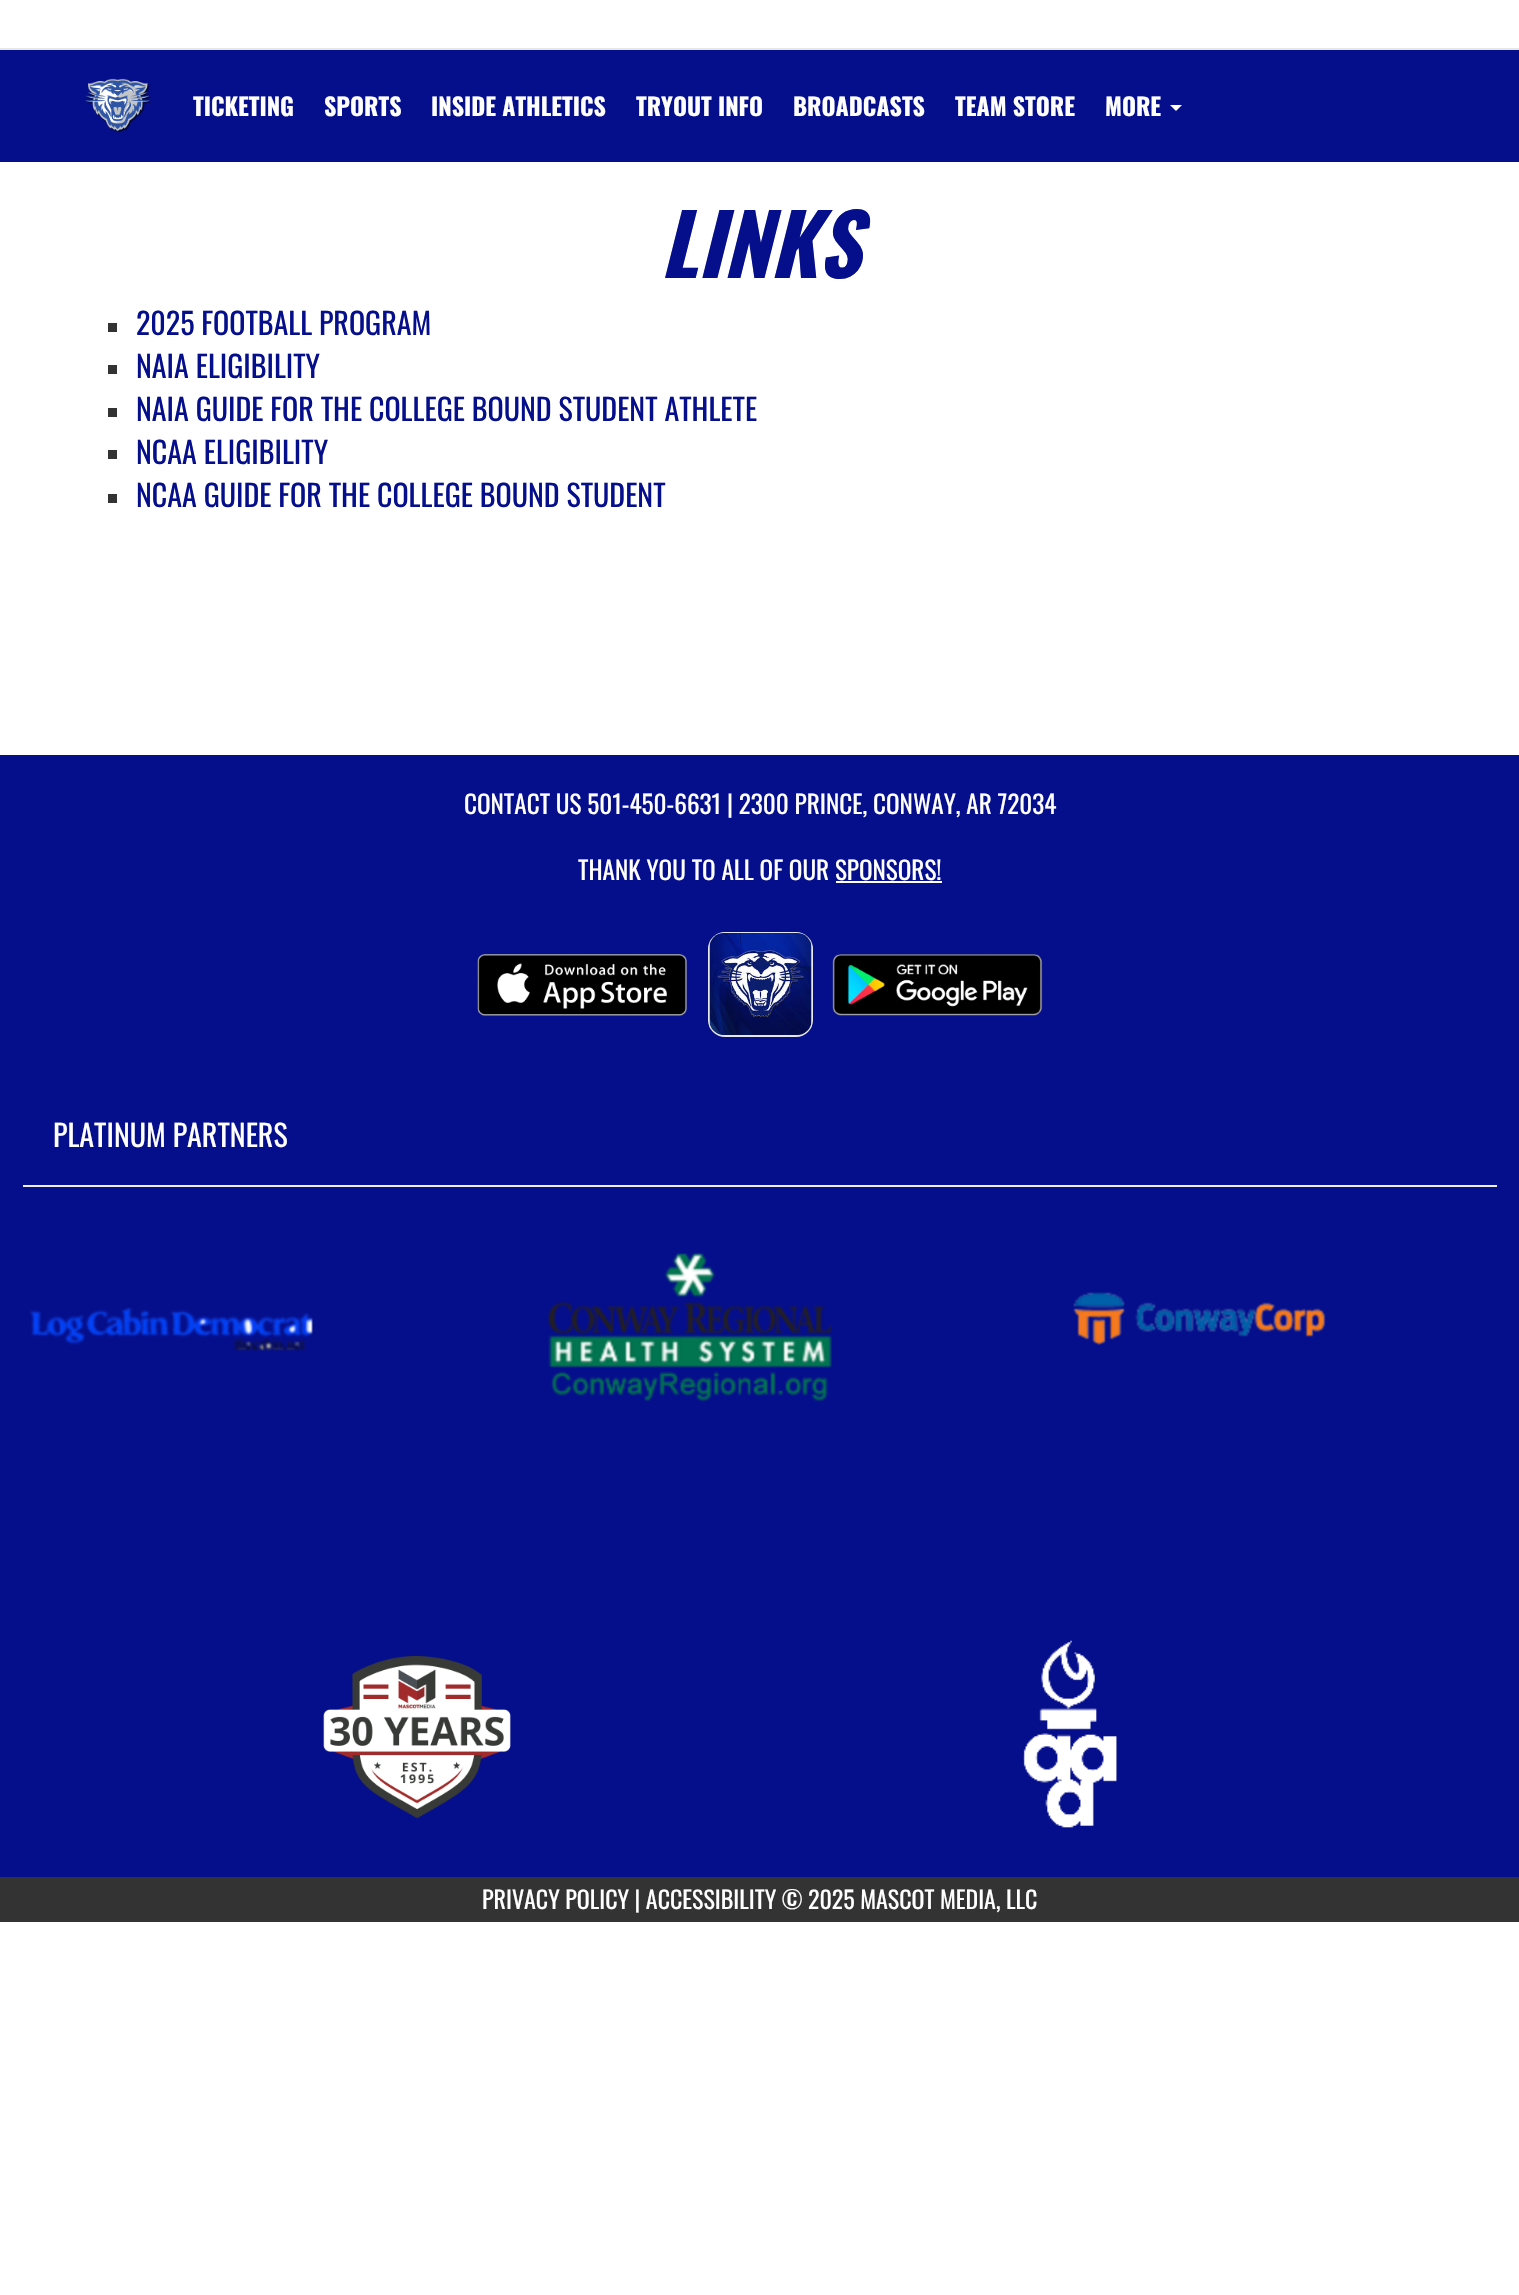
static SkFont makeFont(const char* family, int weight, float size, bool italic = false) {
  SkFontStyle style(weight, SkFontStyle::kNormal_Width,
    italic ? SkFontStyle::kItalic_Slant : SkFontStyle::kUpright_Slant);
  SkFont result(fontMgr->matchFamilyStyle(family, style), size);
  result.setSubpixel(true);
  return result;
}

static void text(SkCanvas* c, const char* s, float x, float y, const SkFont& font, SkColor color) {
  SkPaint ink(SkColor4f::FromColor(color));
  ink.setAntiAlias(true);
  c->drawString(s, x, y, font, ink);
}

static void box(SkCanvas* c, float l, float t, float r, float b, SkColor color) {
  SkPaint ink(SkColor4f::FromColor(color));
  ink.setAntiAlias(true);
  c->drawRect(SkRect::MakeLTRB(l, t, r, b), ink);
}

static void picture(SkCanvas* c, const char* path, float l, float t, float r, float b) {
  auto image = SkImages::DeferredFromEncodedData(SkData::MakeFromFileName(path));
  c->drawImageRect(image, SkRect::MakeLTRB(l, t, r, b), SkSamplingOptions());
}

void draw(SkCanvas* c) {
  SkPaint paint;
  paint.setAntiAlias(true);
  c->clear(0xffffffff);
  box(c, 0, 48, 1519, 50, 0xffe6e7e8);
  box(c, 0, 50, 1519, 162, 0xff060f8b);
  picture(c, "img_01.png", 85, 78, 151, 133);
  SkFont face1 = makeFont("Oswald", 700, 24);
  text(c, "TICKETING", 193, 116, face1, 0xffffffff);
  text(c, "SPORTS", 324, 116, face1, 0xffffffff);
  text(c, "INSIDE ATHLETICS", 431, 116, face1, 0xffffffff);
  text(c, "TRYOUT INFO", 636, 116, face1, 0xffffffff);
  text(c, "BROADCASTS", 793, 116, face1, 0xffffffff);
  text(c, "TEAM STORE", 955, 116, face1, 0xffffffff);
  text(c, "MORE", 1105, 116, face1, 0xffffffff);
  paint.setColor(0xffffffff);
  c->drawPath(SkPathBuilder().moveTo(1170, 105).lineTo(1182, 105).lineTo(1176, 111).close().detach(), paint);
  SkFont face2 = makeFont("Oswald", 700, 84, true);
  text(c, "LINKS", 660, 278, face2, 0xff060f8b);
  box(c, 108, 323, 117, 332, 0xff333333);
  SkFont face3 = makeFont("Oswald", 400, 30);
  text(c, "2025 FOOTBALL PROGRAM", 136, 335, face3, 0xff060f8b);
  box(c, 108, 365, 117, 374, 0xff333333);
  text(c, "NAIA ELIGIBILITY", 136, 378, face3, 0xff060f8b);
  box(c, 108, 408, 117, 417, 0xff333333);
  text(c, "NAIA GUIDE FOR THE COLLEGE BOUND STUDENT ATHLETE", 136, 421, face3, 0xff060f8b);
  box(c, 108, 450, 117, 459, 0xff333333);
  text(c, "NCAA ELIGIBILITY", 136, 464, face3, 0xff060f8b);
  box(c, 108, 494, 117, 503, 0xff333333);
  text(c, "NCAA GUIDE FOR THE COLLEGE BOUND STUDENT", 136, 507, face3, 0xff060f8b);
  box(c, 0, 755, 1519, 1877, 0xff060f8b);
  SkFont face4 = makeFont("Oswald", 400, 25.2f);
  text(c, "CONTACT US 501-450-6631 | 2300 PRINCE, CONWAY, AR 72034", 464, 814, face4, 0xffffffff);
  text(c, "THANK YOU TO ALL OF OUR SPONSORS!", 578, 880, face4, 0xffffffff);
  box(c, 836, 881, 942, 883, 0xffffffff);
  picture(c, "img_02.png", 477, 954, 687, 1016);
  paint.setStyle(SkPaint::kStroke_Style);
  paint.setStrokeWidth(2);
  paint.setColor(0xffe6e7e8);
  c->drawRoundRect(SkRect::MakeLTRB(709, 933, 812, 1036), 16, 16, paint);
  picture(c, "img_03.png", 709, 933, 812, 1035);
  picture(c, "img_04.png", 832, 954, 1043, 1016);
  text(c, "PLATINUM PARTNERS", 53, 1147, face3, 0xffffffff);
  box(c, 23, 1185, 1497, 1187, 0xffeeeeee);
  picture(c, "img_05.png", 29, 1307, 313, 1351);
  picture(c, "img_06.png", 548, 1253, 832, 1402);
  picture(c, "img_07.png", 1073, 1292, 1326, 1345);
  picture(c, "img_08.png", 323, 1656, 511, 1819);
  picture(c, "img_09.png", 1023, 1640, 1117, 1828);
  box(c, 0, 1877, 1519, 1922, 0xff333333);
  SkFont face5 = makeFont("Oswald", 400, 24);
  text(c, "PRIVACY POLICY | ACCESSIBILITY © 2025 MASCOT MEDIA, LLC", 482, 1909, face5, 0xffffffff);
}
